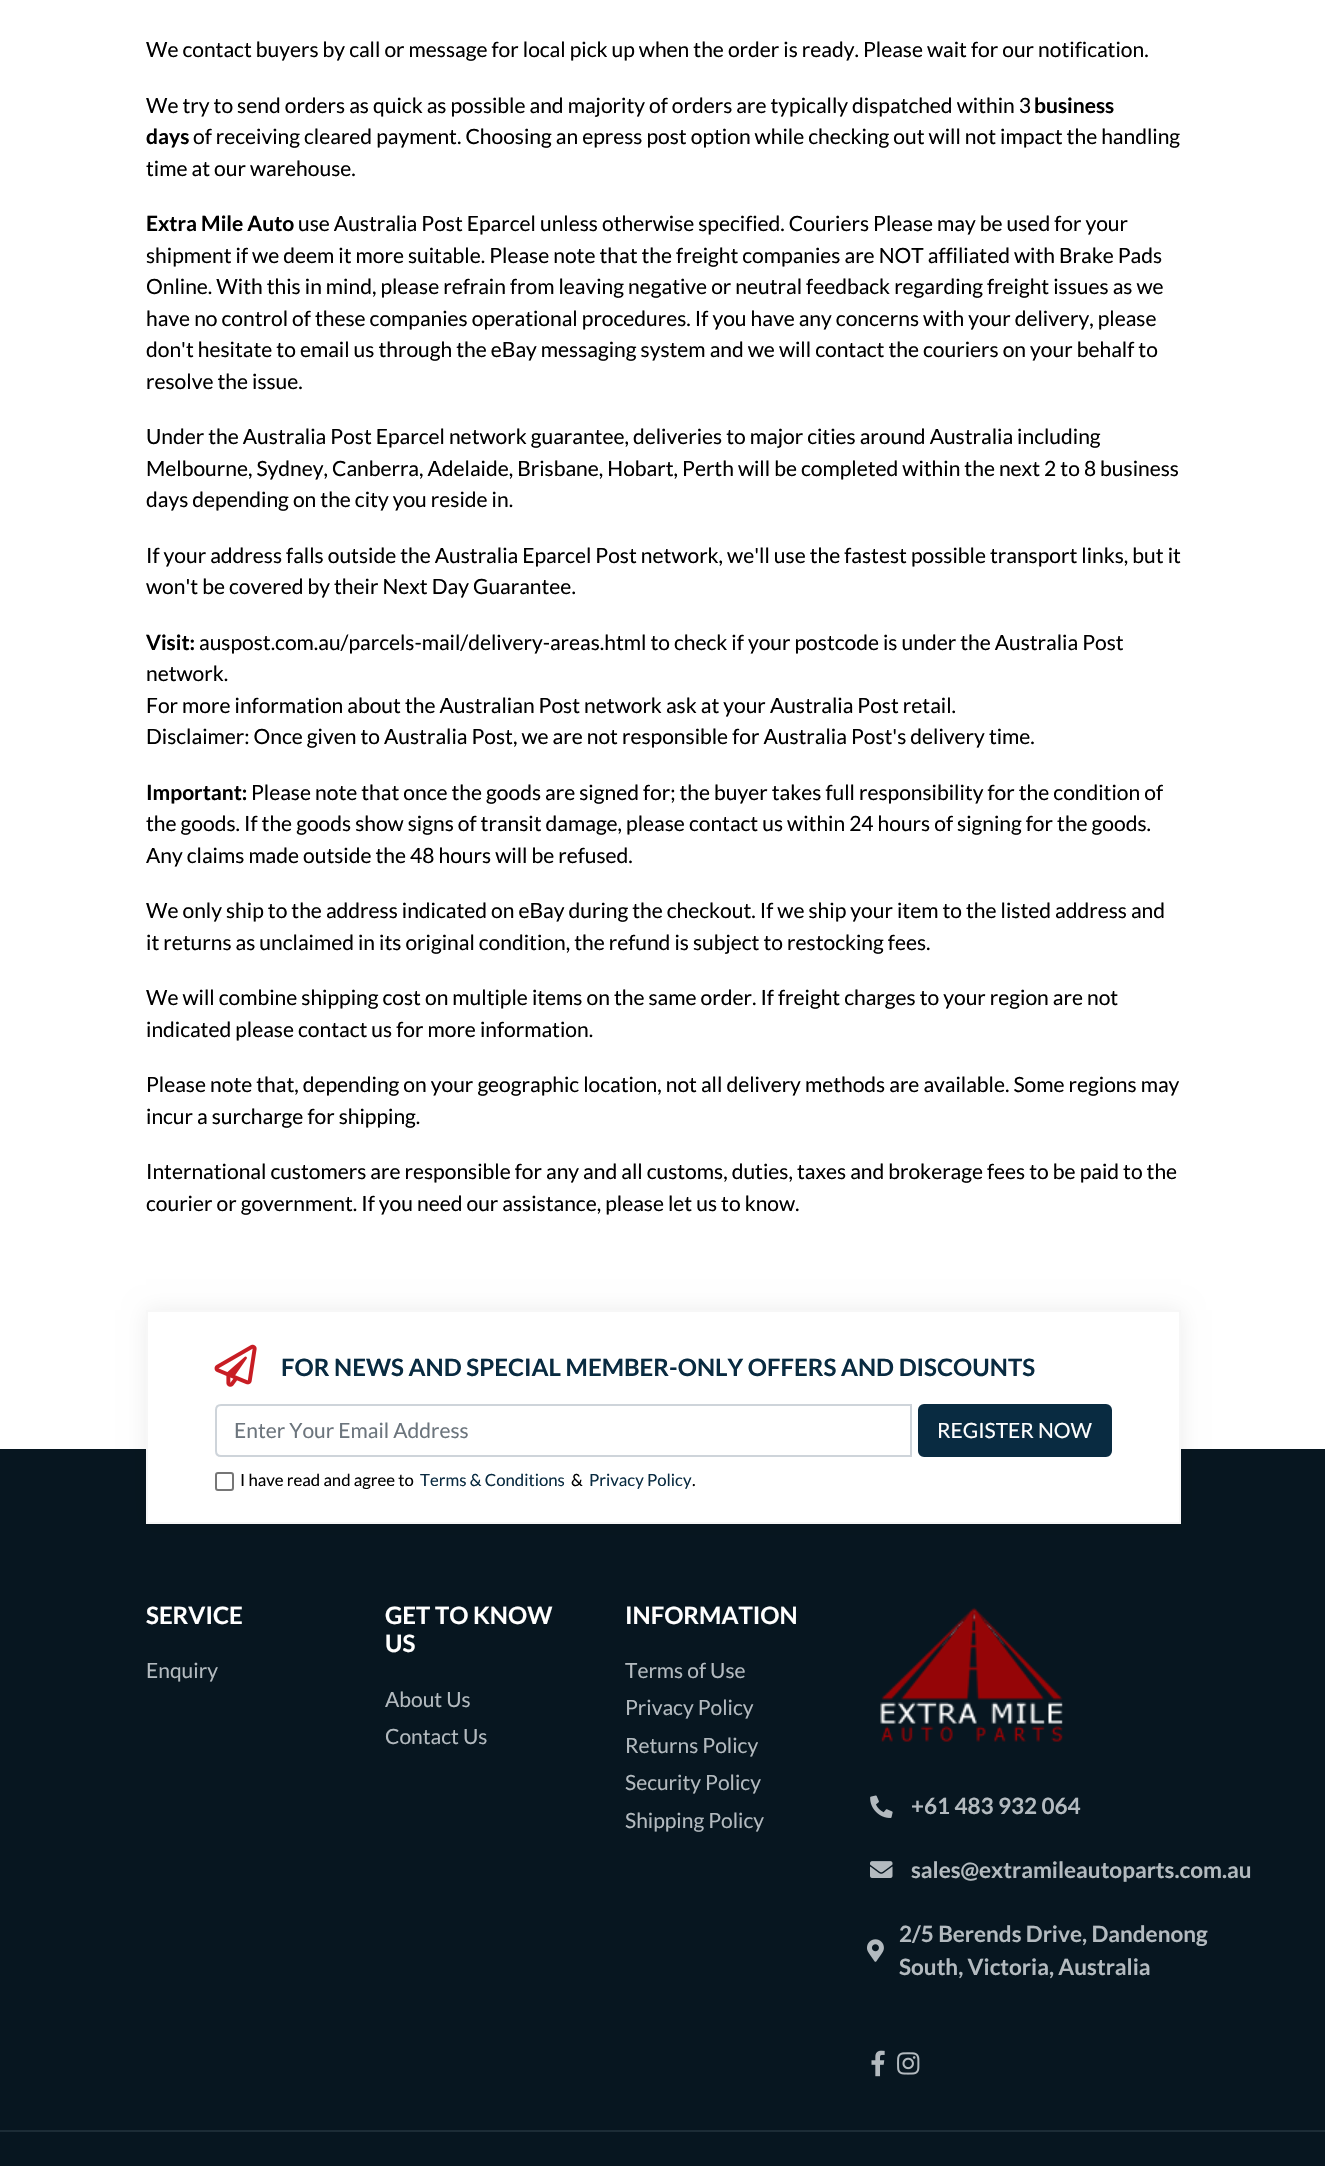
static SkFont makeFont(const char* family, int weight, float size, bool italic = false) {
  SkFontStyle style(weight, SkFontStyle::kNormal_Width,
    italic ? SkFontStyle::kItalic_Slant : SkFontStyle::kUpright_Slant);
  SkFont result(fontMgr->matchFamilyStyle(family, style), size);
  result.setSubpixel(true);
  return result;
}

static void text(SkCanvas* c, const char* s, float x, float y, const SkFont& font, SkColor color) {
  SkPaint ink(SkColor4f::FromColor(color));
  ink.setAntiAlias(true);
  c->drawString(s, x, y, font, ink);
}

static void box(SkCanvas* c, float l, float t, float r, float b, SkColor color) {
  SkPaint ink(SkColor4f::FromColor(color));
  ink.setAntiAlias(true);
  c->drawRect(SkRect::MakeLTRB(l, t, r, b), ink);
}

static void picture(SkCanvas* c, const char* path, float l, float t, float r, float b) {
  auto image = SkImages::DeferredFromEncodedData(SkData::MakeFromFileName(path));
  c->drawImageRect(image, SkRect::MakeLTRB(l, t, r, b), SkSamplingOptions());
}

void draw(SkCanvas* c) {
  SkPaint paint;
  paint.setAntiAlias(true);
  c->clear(0xffffffff);
  SkFont face1 = makeFont("Lato", 400, 21);
  text(c, "We contact buyers by call or message for local pick up when the order is ready. Please wait for our notification.", 146, 57, face1, 0xff000000);
  text(c, "We try to send orders as quick as possible and majority of orders are typically dispatched within 3", 146, 113, face1, 0xff000000);
  SkFont face2 = makeFont("Lato", 700, 21);
  text(c, "business", 1034, 113, face2, 0xff000000);
  text(c, "days", 146, 144, face2, 0xff000000);
  text(c, "of receiving cleared payment. Choosing an epress post option while checking out will not impact the handling", 193, 144, face1, 0xff000000);
  text(c, "time at our warehouse.", 146, 176, face1, 0xff000000);
  text(c, "Extra Mile Auto", 146, 231, face2, 0xff000000);
  text(c, "use Australia Post Eparcel unless otherwise specified. Couriers Please may be used for your", 298, 231, face1, 0xff000000);
  text(c, "shipment if we deem it more suitable. Please note that the freight companies are NOT affiliated with Brake Pads", 146, 263, face1, 0xff000000);
  text(c, "Online. With this in mind, please refrain from leaving negative or neutral feedback regarding freight issues as we", 146, 294, face1, 0xff000000);
  text(c, "have no control of these companies operational procedures. If you have any concerns with your delivery, please", 146, 326, face1, 0xff000000);
  text(c, "don't hesitate to email us through the eBay messaging system and we will contact the couriers on your behalf to", 146, 357, face1, 0xff000000);
  text(c, "resolve the issue.", 146, 389, face1, 0xff000000);
  text(c, "Under the Australia Post Eparcel network guarantee, deliveries to major cities around Australia including", 146, 444, face1, 0xff000000);
  text(c, "Melbourne, Sydney, Canberra, Adelaide, Brisbane, Hobart, Perth will be completed within the next 2 to 8 business", 146, 476, face1, 0xff000000);
  text(c, "days depending on the city you reside in.", 146, 507, face1, 0xff000000);
  text(c, "If your address falls outside the Australia Eparcel Post network, we'll use the fastest possible transport links, but it", 146, 563, face1, 0xff000000);
  text(c, "won't be covered by their Next Day Guarantee.", 146, 594, face1, 0xff000000);
  text(c, "Visit:", 146, 650, face2, 0xff000000);
  text(c, "auspost.com.au/parcels-mail/delivery-areas.html to check if your postcode is under the Australia Post", 199, 650, face1, 0xff000000);
  text(c, "network.", 146, 681, face1, 0xff000000);
  text(c, "For more information about the Australian Post network ask at your Australia Post retail.", 146, 713, face1, 0xff000000);
  text(c, "Disclaimer: Once given to Australia Post, we are not responsible for Australia Post's delivery time.", 146, 744, face1, 0xff000000);
  text(c, "Important:", 146, 800, face2, 0xff000000);
  text(c, "Please note that once the goods are signed for; the buyer takes full responsibility for the condition of", 251, 800, face1, 0xff000000);
  text(c, "the goods. If the goods show signs of transit damage, please contact us within 24 hours of signing for the goods.", 146, 831, face1, 0xff000000);
  text(c, "Any claims made outside the 48 hours will be refused.", 146, 863, face1, 0xff000000);
  text(c, "We only ship to the address indicated on eBay during the checkout. If we ship your item to the listed address and", 146, 918, face1, 0xff000000);
  text(c, "it returns as unclaimed in its original condition, the refund is subject to restocking fees.", 146, 950, face1, 0xff000000);
  text(c, "We will combine shipping cost on multiple items on the same order. If freight charges to your region are not", 146, 1005, face1, 0xff000000);
  text(c, "indicated please contact us for more information.", 146, 1037, face1, 0xff000000);
  text(c, "Please note that, depending on your geographic location, not all delivery methods are available. Some regions may", 146, 1092, face1, 0xff000000);
  text(c, "incur a surcharge for shipping.", 146, 1124, face1, 0xff000000);
  text(c, "International customers are responsible for any and all customs, duties, taxes and brokerage fees to be paid to the", 146, 1179, face1, 0xff000000);
  text(c, "courier or government. If you need our assistance, please let us to know.", 146, 1211, face1, 0xff000000);
  box(c, 0, 1449, 1325, 2166, 0xff071620);
  paint.setColor(0x12000000);
  paint.setMaskFilter(SkMaskFilter::MakeBlur(kNormal_SkBlurStyle, 10.5f));
  c->drawRect(SkRect::MakeLTRB(146, 1310, 1181, 1524), paint);
  paint.setMaskFilter(nullptr);
  paint.setColor(0xffffffff);
  c->drawRect(SkRect::MakeLTRB(147, 1311, 1180, 1523), paint);
  paint.setStyle(SkPaint::kStroke_Style);
  paint.setStrokeWidth(2);
  paint.setColor(0xfff7f7f7);
  c->drawRect(SkRect::MakeLTRB(147, 1311, 1180, 1523), paint);
  picture(c, "img_01.png", 214, 1344, 257, 1387);
  SkFont face3 = makeFont("Lato", 700, 24);
  text(c, "FOR NEWS AND SPECIAL MEMBER-ONLY OFFERS AND DISCOUNTS", 281, 1376, face3, 0xff092b41);
  paint.setColor(0xffced4da);
  c->drawPath(SkPathBuilder().moveTo(221, 1405).lineTo(911, 1405).lineTo(911, 1456).lineTo(221, 1456).cubicTo(218, 1456, 216, 1454, 216, 1451).lineTo(216, 1410).cubicTo(216, 1407, 218, 1405, 221, 1405).close().detach(), paint);
  text(c, "Enter Your Email Address", 234, 1438, face1, 0xff6c757d);
  paint.setStyle(SkPaint::kFill_Style);
  paint.setColor(0xff092b41);
  c->drawRoundRect(SkRect::MakeLTRB(919, 1405, 1111, 1456), 5, 5, paint);
  paint.setStyle(SkPaint::kStroke_Style);
  c->drawRoundRect(SkRect::MakeLTRB(919, 1405, 1111, 1456), 5, 5, paint);
  text(c, "REGISTER NOW", 937, 1438, face1, 0xffffffff);
  paint.setColor(0xff767676);
  c->drawRoundRect(SkRect::MakeLTRB(216, 1473, 233, 1490), 2, 2, paint);
  SkFont face4 = makeFont("Lato", 400, 16.75f);
  text(c, "I have read and agree to", 240, 1486, face4, 0xff000000);
  text(c, "Terms & Conditions", 420, 1486, face4, 0xff092b41);
  text(c, "&", 571, 1486, face4, 0xff000000);
  text(c, "Privacy Policy", 589, 1486, face4, 0xff092b41);
  text(c, ".", 692, 1486, face4, 0xff000000);
  text(c, "SERVICE", 146, 1624, face3, 0xffffffff);
  text(c, "Enquiry", 146, 1678, face1, 0xffb3babf);
  text(c, "GET TO KNOW", 385, 1624, face3, 0xffffffff);
  text(c, "US", 385, 1652, face3, 0xffffffff);
  text(c, "About Us", 385, 1707, face1, 0xffb3babf);
  text(c, "Contact Us", 385, 1744, face1, 0xffb3babf);
  text(c, "INFORMATION", 625, 1624, face3, 0xffffffff);
  text(c, "Terms of Use", 625, 1678, face1, 0xffb3babf);
  text(c, "Privacy Policy", 625, 1715, face1, 0xffb3babf);
  text(c, "Returns Policy", 625, 1753, face1, 0xffb3babf);
  text(c, "Security Policy", 625, 1790, face1, 0xffb3babf);
  text(c, "Shipping Policy", 625, 1828, face1, 0xffb3babf);
  picture(c, "img_02.png", 880, 1607, 1063, 1742);
  picture(c, "img_03.png", 870, 1795, 893, 1818);
  SkFont face5 = makeFont("Lato", 700, 22.5f);
  text(c, "+61 483 932 064", 911, 1814, face5, 0xffb3babf);
  picture(c, "img_04.png", 870, 1861, 893, 1878);
  text(c, "sales@extramileautoparts.com.au", 911, 1878, face5, 0xffb3babf);
  picture(c, "img_05.png", 867, 1939, 884, 1962);
  text(c, "2/5 Berends Drive, Dandenong", 899, 1942, face5, 0xffb3babf);
  text(c, "South, Victoria, Australia", 899, 1975, face5, 0xffb3babf);
  picture(c, "img_06.png", 871, 2050, 885, 2077);
  picture(c, "img_07.png", 897, 2052, 920, 2075);
  box(c, 0, 2130, 1325, 2132, 0xff1c2c36);
}
